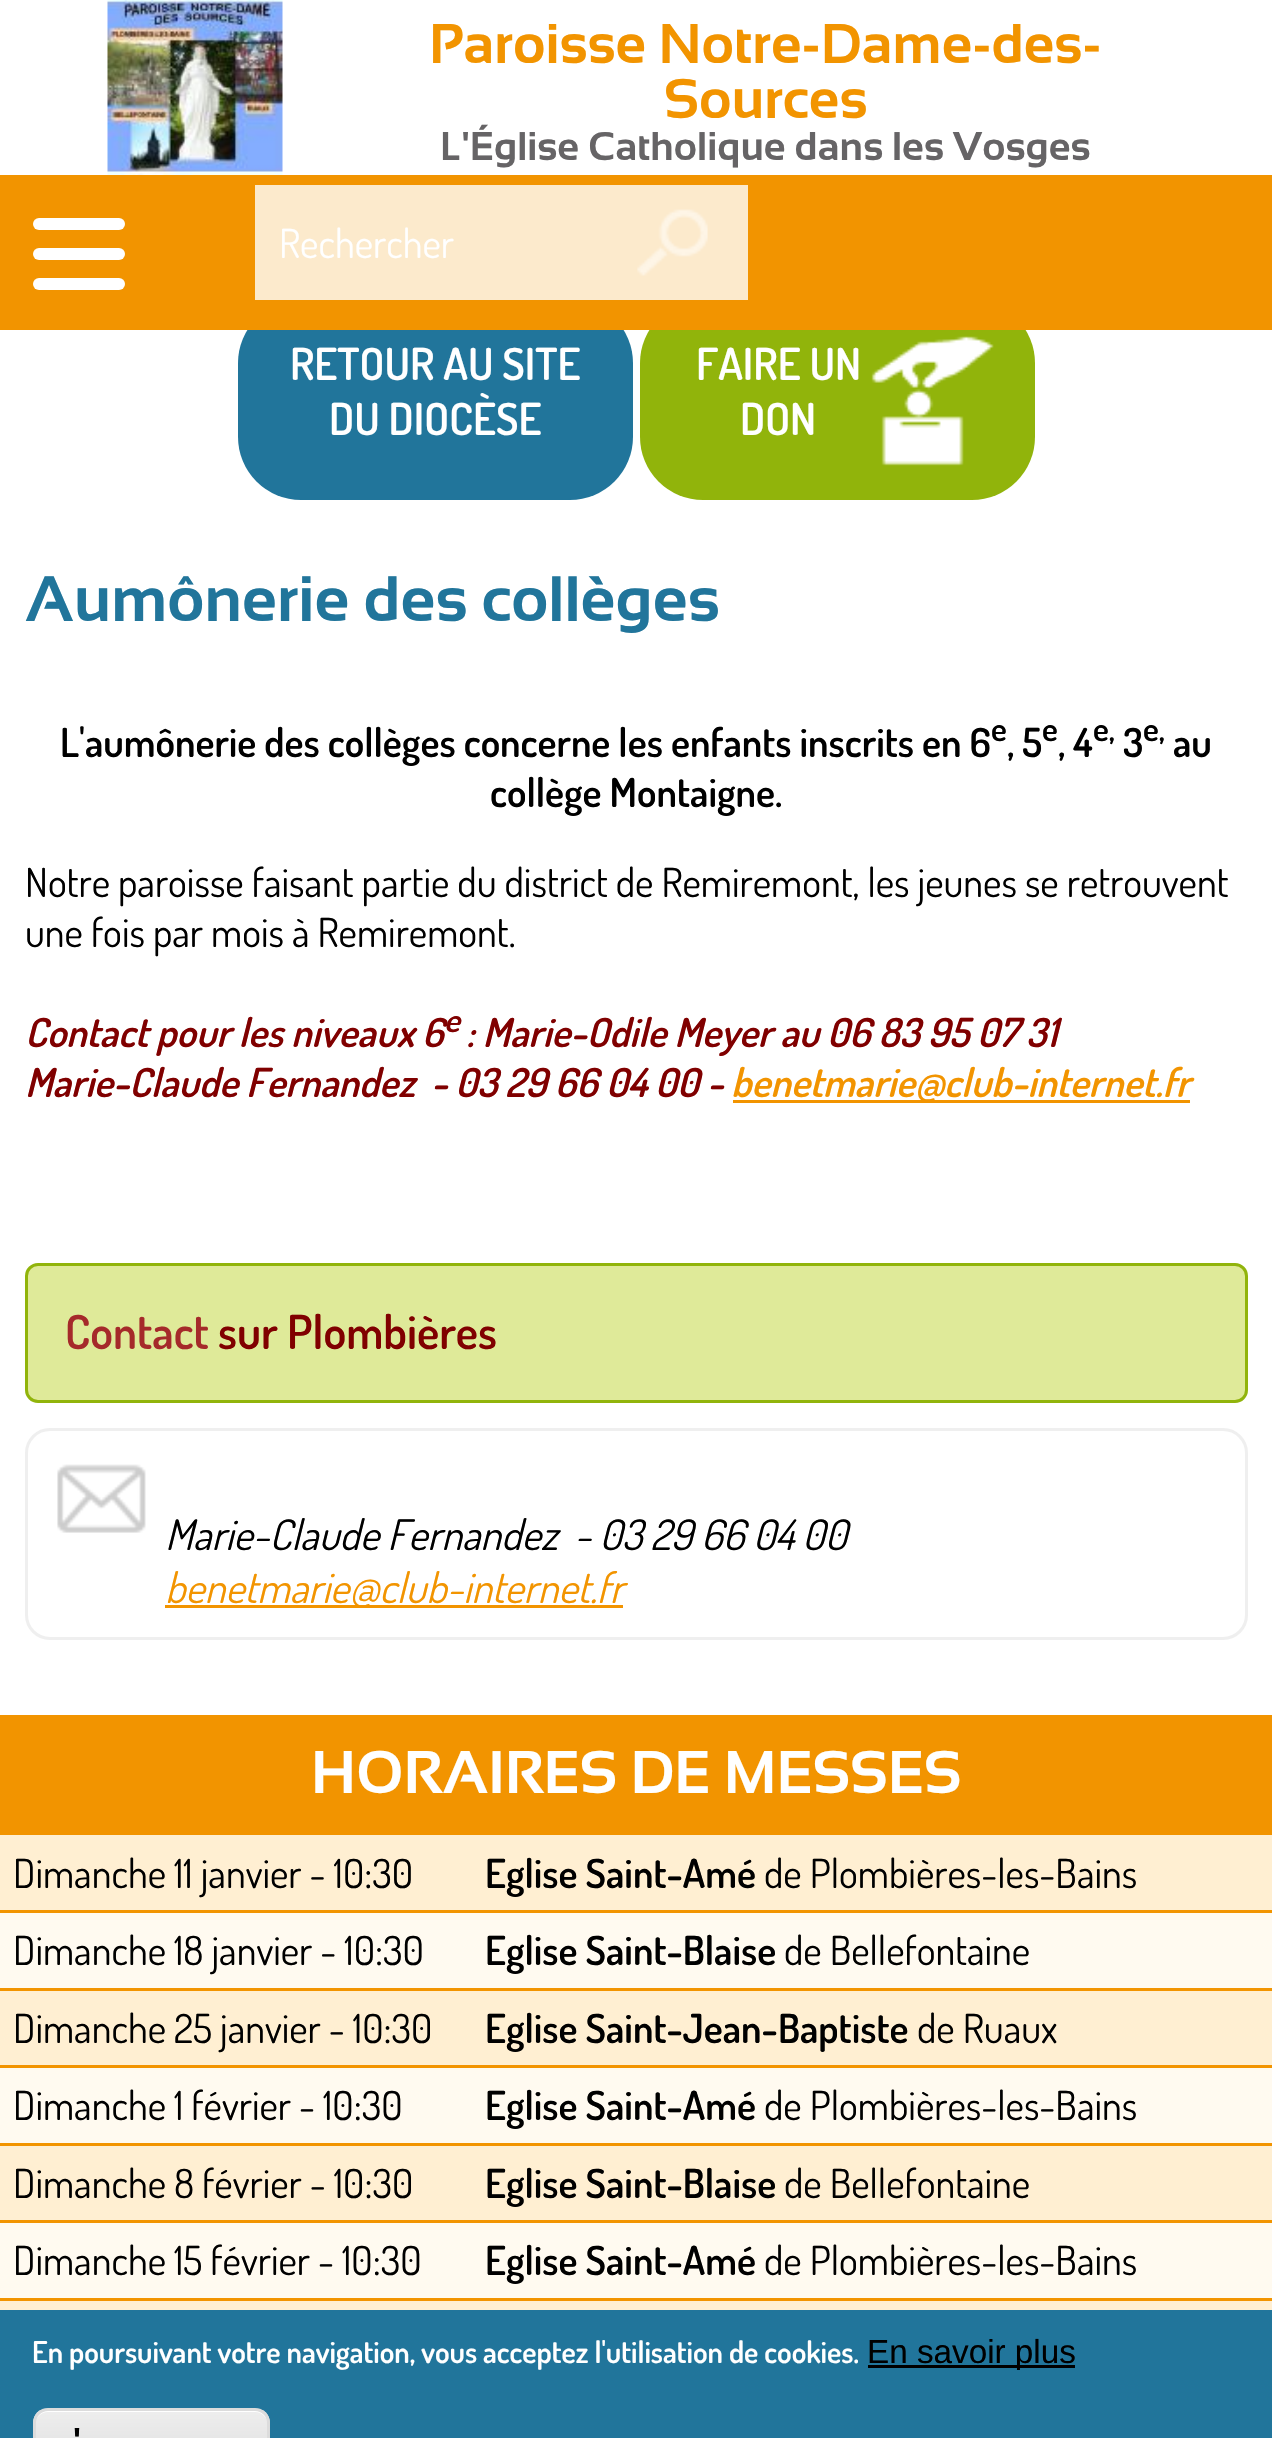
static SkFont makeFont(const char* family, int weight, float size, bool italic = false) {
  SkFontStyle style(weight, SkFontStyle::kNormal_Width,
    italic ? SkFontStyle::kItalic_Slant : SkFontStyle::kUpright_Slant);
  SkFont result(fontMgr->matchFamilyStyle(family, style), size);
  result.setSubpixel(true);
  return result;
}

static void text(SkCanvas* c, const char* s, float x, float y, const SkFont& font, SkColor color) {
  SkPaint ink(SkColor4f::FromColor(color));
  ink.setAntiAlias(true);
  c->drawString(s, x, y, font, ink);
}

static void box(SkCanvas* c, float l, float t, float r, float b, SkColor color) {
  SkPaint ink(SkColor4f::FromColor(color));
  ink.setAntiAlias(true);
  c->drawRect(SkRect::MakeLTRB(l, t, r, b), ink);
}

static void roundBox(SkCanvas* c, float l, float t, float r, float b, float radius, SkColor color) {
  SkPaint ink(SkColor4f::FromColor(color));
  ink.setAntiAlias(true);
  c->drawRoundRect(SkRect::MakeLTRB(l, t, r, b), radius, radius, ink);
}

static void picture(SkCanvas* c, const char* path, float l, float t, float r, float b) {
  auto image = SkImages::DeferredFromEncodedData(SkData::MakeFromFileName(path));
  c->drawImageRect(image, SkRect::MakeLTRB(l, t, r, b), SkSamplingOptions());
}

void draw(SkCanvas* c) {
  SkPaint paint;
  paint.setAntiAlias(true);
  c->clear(0xffffffff);
  picture(c, "img_01.png", 107, 0, 283, 175);
  SkFont face1 = makeFont("Sansation", 700, 56);
  text(c, "Paroisse Notre-Dame-des-", 429, 63, face1, 0xfff29400);
  text(c, "Sources", 664, 118, face1, 0xfff29400);
  SkFont face2 = makeFont("Sansation", 700, 40);
  text(c, "L'Église Catholique dans les Vosges", 440, 160, face2, 0xff666466);
  roundBox(c, 238, 300, 633, 500, 63, 0xff21759b);
  roundBox(c, 640, 300, 1035, 500, 63, 0xff91b40b);
  box(c, 0, 175, 1272, 330, 0xfff29400);
  box(c, 255, 185, 748, 300, 0xfffceacc);
  SkFont face3 = makeFont("Dosis", 400, 40);
  text(c, "Rechercher", 279, 258, face3, 0xffffffff);
  picture(c, "img_02.png", 637, 209, 708, 276);
  SkFont face4 = makeFont("Dosis", 600, 44);
  text(c, "RETOUR AU SITE", 290, 380, face4, 0xffffffff);
  text(c, "DU DIOCÈSE", 329, 435, face4, 0xffffffff);
  picture(c, "img_03.png", 871, 336, 994, 466);
  text(c, "FAIRE UN", 696, 380, face4, 0xffffffff);
  text(c, "DON", 740, 435, face4, 0xffffffff);
  roundBox(c, 33, 218, 125, 230, 6, 0xffffffff);
  roundBox(c, 33, 248, 125, 260, 6, 0xffffffff);
  roundBox(c, 33, 278, 125, 290, 6, 0xffffffff);
  SkFont face5 = makeFont("Sansation", 700, 64);
  text(c, "Aumônerie des collèges", 25, 621, face5, 0xff21759b);
  SkFont face6 = makeFont("Dosis", 600, 40);
  text(c, "L'aumônerie des collèges concerne les enfants inscrits en 6", 60, 757, face6, 0xff000000);
  SkFont face7 = makeFont("Dosis", 600, 33.25f);
  text(c, "e", 991, 741, face7, 0xff000000);
  text(c, ", 5", 1007, 757, face6, 0xff000000);
  text(c, "e", 1042, 741, face7, 0xff000000);
  text(c, ", 4", 1058, 757, face6, 0xff000000);
  text(c, "e,", 1093, 741, face7, 0xff000000);
  text(c, "3", 1123, 757, face6, 0xff000000);
  text(c, "e,", 1143, 741, face7, 0xff000000);
  text(c, "au", 1173, 757, face6, 0xff000000);
  text(c, "collège Montaigne.", 490, 807, face6, 0xff000000);
  text(c, "Notre paroisse faisant partie du district de Remiremont, les jeunes se retrouvent", 25, 897, face3, 0xff000000);
  text(c, "une fois par mois à Remiremont.", 25, 947, face3, 0xff000000);
  SkFont face8 = makeFont("Dosis", 600, 40, true);
  text(c, "Contact pour les niveaux 6", 25, 1047, face8, 0xff800000);
  SkFont face9 = makeFont("Dosis", 600, 33.25f, true);
  text(c, "e", 444, 1032, face9, 0xff800000);
  text(c, ": Marie-Odile Meyer au 06 83 95 07 31", 466, 1047, face8, 0xff800000);
  text(c, "Marie-Claude Fernandez  - 03 29 66 04 00 -", 25, 1097, face8, 0xff800000);
  box(c, 733, 1100, 1190, 1103, 0xfff29400);
  text(c, "benetmarie@club-internet.fr", 731, 1097, face8, 0xfff29400);
  paint.setColor(0xffdfea99);
  c->drawRoundRect(SkRect::MakeLTRB(26.5f, 1264.5f, 1246.5f, 1401.5f), 11.5f, 11.5f, paint);
  paint.setStyle(SkPaint::kStroke_Style);
  paint.setStrokeWidth(3);
  paint.setColor(0xff91b40b);
  c->drawRoundRect(SkRect::MakeLTRB(26.5f, 1264.5f, 1246.5f, 1401.5f), 11.5f, 11.5f, paint);
  SkFont face10 = makeFont("Dosis", 600, 46.75f);
  text(c, "Contact", 65, 1349, face10, 0xffa52a2a);
  text(c, "sur Plombières", 218, 1349, face10, 0xff800000);
  picture(c, "img_04.png", 57, 1464, 146, 1533);
  paint.setColor(0xffefefef);
  c->drawRoundRect(SkRect::MakeLTRB(26.5f, 1429.5f, 1246.5f, 1638.5f), 23.5f, 23.5f, paint);
  SkFont face11 = makeFont("Dosis", 400, 42, true);
  text(c, "Marie-Claude Fernandez  - 03 29 66 04 00", 165, 1550, face11, 0xff000000);
  box(c, 165, 1605, 623, 1608, 0xfff29400);
  text(c, "benetmarie@club-internet.fr", 165, 1603, face11, 0xfff29400);
  box(c, 0, 1715, 1272, 1835, 0xfff29400);
  SkFont face12 = makeFont("Sansation", 700, 60);
  text(c, "HORAIRES DE MESSES", 311, 1793, face12, 0xffffffff);
  box(c, 0, 1835, 1272, 1910, 0xffffefd2);
  box(c, 0, 1910, 1272, 1913, 0xfff29400);
  text(c, "Dimanche 11 janvier - 10:30", 13, 1888, face3, 0xff000000);
  text(c, "Eglise Saint-Amé", 485, 1888, face6, 0xff000000);
  text(c, "de Plombières-les-Bains", 764, 1888, face3, 0xff000000);
  box(c, 0, 1913, 1272, 1988, 0xfffffaf0);
  box(c, 0, 1988, 1272, 1991, 0xfff29400);
  text(c, "Dimanche 18 janvier - 10:30", 13, 1965, face3, 0xff000000);
  text(c, "Eglise Saint-Blaise", 485, 1965, face6, 0xff000000);
  text(c, "de Bellefontaine", 784, 1965, face3, 0xff000000);
  box(c, 0, 1991, 1272, 2065, 0xffffefd2);
  box(c, 0, 2065, 1272, 2068, 0xfff29400);
  text(c, "Dimanche 25 janvier - 10:30", 13, 2043, face3, 0xff000000);
  text(c, "Eglise Saint-Jean-Baptiste", 485, 2043, face6, 0xff000000);
  text(c, "de Ruaux", 917, 2043, face3, 0xff000000);
  box(c, 0, 2068, 1272, 2143, 0xfffffaf0);
  box(c, 0, 2143, 1272, 2146, 0xfff29400);
  text(c, "Dimanche 1 février - 10:30", 13, 2120, face3, 0xff000000);
  text(c, "Eglise Saint-Amé", 485, 2120, face6, 0xff000000);
  text(c, "de Plombières-les-Bains", 764, 2120, face3, 0xff000000);
  box(c, 0, 2146, 1272, 2220, 0xffffefd2);
  box(c, 0, 2220, 1272, 2223, 0xfff29400);
  text(c, "Dimanche 8 février - 10:30", 13, 2198, face3, 0xff000000);
  text(c, "Eglise Saint-Blaise", 485, 2198, face6, 0xff000000);
  text(c, "de Bellefontaine", 784, 2198, face3, 0xff000000);
  box(c, 0, 2223, 1272, 2298, 0xfffffaf0);
  box(c, 0, 2298, 1272, 2301, 0xfff29400);
  text(c, "Dimanche 15 février - 10:30", 13, 2275, face3, 0xff000000);
  text(c, "Eglise Saint-Amé", 485, 2275, face6, 0xff000000);
  text(c, "de Plombières-les-Bains", 764, 2275, face3, 0xff000000);
  box(c, 0, 2301, 1272, 2310, 0xffffefd2);
  box(c, 0, 2310, 1272, 2438, 0xff21759b);
  SkFont face13 = makeFont("Dosis", 600, 30);
  text(c, "En poursuivant votre navigation, vous acceptez l'utilisation de cookies.", 32, 2363, face13, 0xffffffff);
  box(c, 868, 2365, 1075, 2368, 0xff000000);
  SkFont face14 = makeFont("Liberation Sans", 400, 33.25f);
  text(c, "En savoir plus", 867, 2363, face14, 0xff000000);
  c->save();
  c->clipPath(SkPathBuilder().moveTo(48, 2408).lineTo(255, 2408).cubicTo(263.5f, 2408, 270, 2414.5f, 270, 2423).lineTo(270, 2455).cubicTo(270, 2463.5f, 263.5f, 2470, 255, 2470).lineTo(48, 2470).cubicTo(39.5f, 2470, 33, 2463.5f, 33, 2455).lineTo(33, 2423).cubicTo(33, 2414.5f, 39.5f, 2408, 48, 2408).close().detach(), true);
  paint.setStyle(SkPaint::kFill_Style);
  {
    const SkColor colors[] = {0xffededed, 0xffdfdfdf};
    const float stops[] = {0.05f, 1};
    const SkPoint ends[] = {{151, 2410}, {151, 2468}};
    paint.setShader(SkGradientShader::MakeLinear(ends, colors, stops, 2, SkTileMode::kClamp));
    paint.setAlpha(255);
  }
  c->drawRect(SkRect::MakeLTRB(33, 2410, 270, 2438), paint);
  c->restore();
  paint.setShader(nullptr);
  paint.setColor(0xffffffff);
  c->drawPath(SkPathBuilder().moveTo(48, 2412).lineTo(255, 2412).cubicTo(262, 2412, 268, 2418, 268, 2425).lineTo(268, 2423).cubicTo(268, 2416, 262, 2410, 255, 2410).lineTo(48, 2410).cubicTo(41, 2410, 35, 2416, 35, 2423).lineTo(35, 2425).cubicTo(35, 2418, 41, 2412, 48, 2412).close().detach(), paint);
  paint.setStyle(SkPaint::kStroke_Style);
  paint.setColor(0xffdcdcdc);
  c->drawRoundRect(SkRect::MakeLTRB(34.5f, 2409.5f, 268.5f, 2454.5f), 13.5f, 13.5f, paint);
  SkFont face15 = makeFont("Liberation Sans", 700, 33.25f);
  text(c, "'", 73, 2451, face15, 0xff000000);
}
